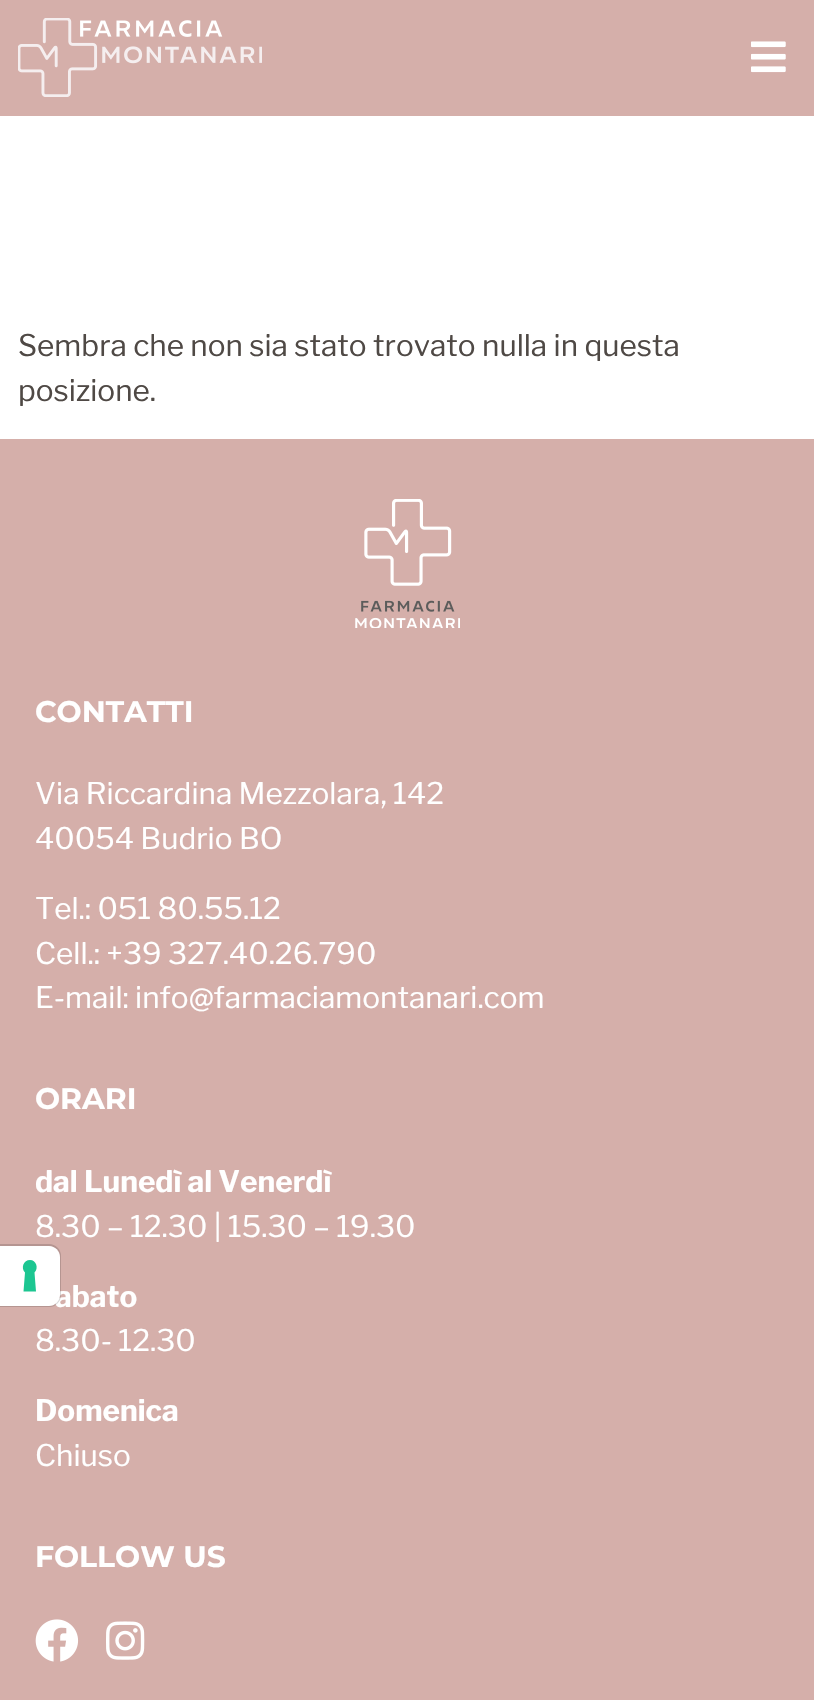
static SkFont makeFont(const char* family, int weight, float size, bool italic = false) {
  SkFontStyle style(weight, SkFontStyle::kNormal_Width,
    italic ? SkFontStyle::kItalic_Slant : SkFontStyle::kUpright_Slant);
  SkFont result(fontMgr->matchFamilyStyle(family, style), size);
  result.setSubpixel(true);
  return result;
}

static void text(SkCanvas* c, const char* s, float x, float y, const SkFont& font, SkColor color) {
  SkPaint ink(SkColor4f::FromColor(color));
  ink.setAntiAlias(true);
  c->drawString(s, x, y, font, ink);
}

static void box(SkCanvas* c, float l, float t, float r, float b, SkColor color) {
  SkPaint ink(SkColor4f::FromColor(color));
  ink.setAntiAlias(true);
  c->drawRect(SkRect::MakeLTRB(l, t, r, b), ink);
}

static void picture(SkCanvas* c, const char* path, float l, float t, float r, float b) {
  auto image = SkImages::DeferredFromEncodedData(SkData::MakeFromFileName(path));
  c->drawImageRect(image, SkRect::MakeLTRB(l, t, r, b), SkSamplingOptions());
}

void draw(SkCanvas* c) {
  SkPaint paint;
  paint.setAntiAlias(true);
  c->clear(0xffffffff);
  box(c, 0, 0, 814, 116, 0xffd5afaa);
  picture(c, "img_01.png", 18, 18, 262, 97);
  picture(c, "img_02.png", 751, 41, 786, 73);
  SkFont face1 = makeFont("Libre Franklin", 400, 29.75f);
  text(c, "Sembra che non sia stato trovato nulla in questa", 18, 356, face1, 0xff4f4945);
  text(c, "posizione.", 18, 401, face1, 0xff4f4945);
  box(c, 0, 439, 814, 1700, 0xffd5afaa);
  SkFont face2 = makeFont("Libre Franklin", 700, 29.75f);
  text(c, "abato", 55, 1307, face2, 0xffffffff);
  paint.setStyle(SkPaint::kStroke_Style);
  paint.setStrokeWidth(2);
  paint.setColor(0x26000000);
  c->drawPath(SkPathBuilder().moveTo(-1, 1245).lineTo(49, 1245).cubicTo(55, 1245, 60, 1250, 60, 1256).lineTo(60, 1295).cubicTo(60, 1301, 55, 1306, 49, 1306).lineTo(-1, 1306).close().detach(), paint);
  paint.setStyle(SkPaint::kFill_Style);
  paint.setColor(0xffffffff);
  c->drawPath(SkPathBuilder().moveTo(0, 1246).lineTo(49, 1246).cubicTo(55, 1246, 60, 1251, 60, 1257).lineTo(60, 1295).cubicTo(60, 1301, 55, 1306, 49, 1306).lineTo(0, 1306).close().detach(), paint);
  paint.setColor(0xff1cc691);
  c->drawPath(SkPathBuilder(SkPathFillType::kEvenOdd).moveTo(30, 1260).cubicTo(36, 1260, 39, 1268, 34.5f, 1272.5f).lineTo(36, 1291.5f).lineTo(23.5f, 1291.5f).lineTo(25, 1272.5f).cubicTo(20.5f, 1268, 23.5f, 1260, 30, 1260).close().detach(), paint);
  picture(c, "img_03.png", 355, 499, 460, 628);
  SkFont face3 = makeFont("Montserrat", 700, 29.75f);
  text(c, "CONTATTI", 35, 722, face3, 0xffffffff);
  text(c, "Via Riccardina Mezzolara, 142", 35, 804, face1, 0xffffffff);
  text(c, "40054 Budrio BO", 35, 849, face1, 0xffffffff);
  text(c, "Tel.: 051 80.55.12", 35, 919, face1, 0xffffffff);
  text(c, "Cell.: +39 327.40.26.790", 35, 964, face1, 0xffffffff);
  text(c, "E-mail: info@farmaciamontanari.com", 35, 1008, face1, 0xffffffff);
  text(c, "ORARI", 35, 1109, face3, 0xffffffff);
  text(c, "dal Lunedì al Venerdì", 35, 1192, face2, 0xffffffff);
  text(c, "8.30 – 12.30 | 15.30 – 19.30", 35, 1237, face1, 0xffffffff);
  text(c, "8.30- 12.30", 35, 1351, face1, 0xffffffff);
  text(c, "Domenica", 35, 1421, face2, 0xffffffff);
  text(c, "Chiuso", 35, 1466, face1, 0xffffffff);
  text(c, "FOLLOW US", 35, 1567, face3, 0xffffffff);
  picture(c, "img_04.png", 35, 1619, 79, 1662);
  picture(c, "img_05.png", 106, 1621, 145, 1660);
}
